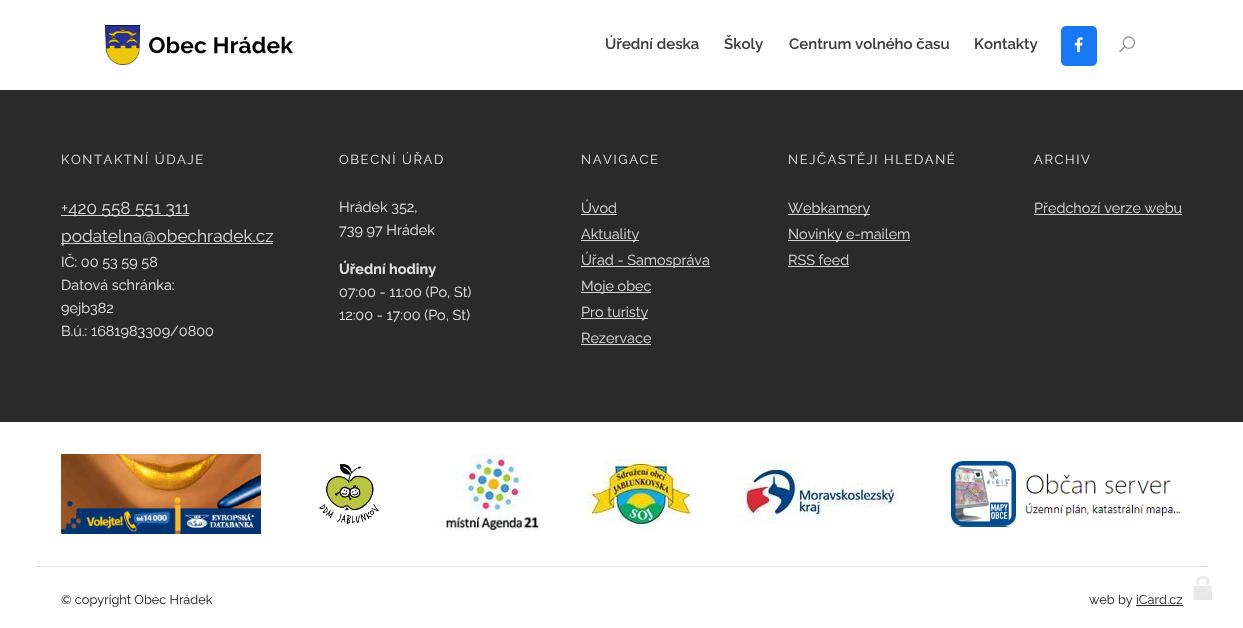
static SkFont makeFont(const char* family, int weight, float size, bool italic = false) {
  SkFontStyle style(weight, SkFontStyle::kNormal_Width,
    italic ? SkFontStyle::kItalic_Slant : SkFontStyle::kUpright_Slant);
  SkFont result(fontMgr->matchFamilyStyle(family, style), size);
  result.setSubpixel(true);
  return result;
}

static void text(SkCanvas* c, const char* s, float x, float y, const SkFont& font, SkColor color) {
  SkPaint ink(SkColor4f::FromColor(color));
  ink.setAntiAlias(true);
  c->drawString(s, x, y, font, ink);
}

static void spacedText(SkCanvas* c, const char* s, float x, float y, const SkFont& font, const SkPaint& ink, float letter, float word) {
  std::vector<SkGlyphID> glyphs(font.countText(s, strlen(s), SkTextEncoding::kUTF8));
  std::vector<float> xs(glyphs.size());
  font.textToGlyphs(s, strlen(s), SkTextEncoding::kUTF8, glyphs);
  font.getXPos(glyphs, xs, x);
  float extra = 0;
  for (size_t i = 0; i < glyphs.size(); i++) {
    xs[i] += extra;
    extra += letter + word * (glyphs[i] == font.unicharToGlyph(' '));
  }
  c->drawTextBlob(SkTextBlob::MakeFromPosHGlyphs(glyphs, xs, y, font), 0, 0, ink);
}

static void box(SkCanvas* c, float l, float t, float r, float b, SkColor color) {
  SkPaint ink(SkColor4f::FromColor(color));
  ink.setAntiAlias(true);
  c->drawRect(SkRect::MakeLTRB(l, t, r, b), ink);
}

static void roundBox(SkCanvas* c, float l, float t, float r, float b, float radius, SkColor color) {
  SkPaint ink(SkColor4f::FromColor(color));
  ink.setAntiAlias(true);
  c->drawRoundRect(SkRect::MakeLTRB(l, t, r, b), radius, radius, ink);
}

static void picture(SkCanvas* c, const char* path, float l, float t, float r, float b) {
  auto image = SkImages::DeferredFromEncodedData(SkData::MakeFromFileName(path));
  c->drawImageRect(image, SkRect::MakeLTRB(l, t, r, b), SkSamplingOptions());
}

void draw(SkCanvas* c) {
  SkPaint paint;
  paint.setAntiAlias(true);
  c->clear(0xffffffff);
  picture(c, "img_01.png", 105, 25, 293, 65);
  SkFont face1 = makeFont("Raleway", 600, 15);
  text(c, "Úřední deska", 605, 49, face1, 0xff3f3f3f);
  text(c, "Školy", 724, 49, face1, 0xff3f3f3f);
  text(c, "Centrum volného času", 789, 49, face1, 0xff3f3f3f);
  text(c, "Kontakty", 974, 49, face1, 0xff3f3f3f);
  roundBox(c, 1061, 26, 1097, 66, 5, 0xff1877f2);
  picture(c, "img_02.png", 1074, 37, 1083, 53);
  picture(c, "img_03.png", 1119, 36, 1136, 53);
  box(c, 0, 90, 1243, 422, 0xff2a2a2a);
  SkFont face2 = makeFont("Raleway", 400, 13);
  paint.setColor(0xffdfdfdf);
  spacedText(c, "KONTAKTNÍ ÚDAJE", 61, 164, face2, paint, 1.6f, 0);
  box(c, 61, 215, 189, 216, 0xffd4d4d4);
  SkFont face3 = makeFont("Raleway", 400, 17.25f);
  text(c, "+420 558 551 311", 61, 214, face3, 0xffd4d4d4);
  box(c, 61, 243, 273, 244, 0xffd4d4d4);
  text(c, "podatelna@obechradek.cz", 61, 242, face3, 0xffd4d4d4);
  SkFont face4 = makeFont("Raleway", 400, 14.4f);
  text(c, "IČ: 00 53 59 58", 61, 267, face4, 0xffdfdfdf);
  text(c, "Datová schránka:", 61, 290, face4, 0xffdfdfdf);
  text(c, "9ejb382", 61, 313, face4, 0xffdfdfdf);
  text(c, "B.ú.: 1681983309/0800", 61, 336, face4, 0xffdfdfdf);
  spacedText(c, "OBECNÍ ÚŘAD", 339, 164, face2, paint, 1.6f, 0);
  text(c, "Hrádek 352,", 339, 212, face4, 0xffdfdfdf);
  text(c, "739 97 Hrádek", 339, 235, face4, 0xffdfdfdf);
  SkFont face5 = makeFont("Raleway", 700, 14.4f);
  text(c, "Úřední hodiny", 339, 274, face5, 0xffdfdfdf);
  text(c, "07:00 - 11:00 (Po, St)", 339, 297, face4, 0xffdfdfdf);
  text(c, "12:00 - 17:00 (Po, St)", 339, 320, face4, 0xffdfdfdf);
  spacedText(c, "NAVIGACE", 581, 164, face2, paint, 1.6f, 0);
  text(c, "Úvod", 581, 213, face4, 0xffd4d4d4);
  box(c, 581, 214, 617, 215, 0xffd4d4d4);
  box(c, 581, 240, 639, 241, 0xffd4d4d4);
  text(c, "Aktuality", 581, 239, face4, 0xffd4d4d4);
  box(c, 581, 266, 710, 267, 0xffd4d4d4);
  text(c, "Úřad - Samospráva", 581, 265, face4, 0xffd4d4d4);
  box(c, 581, 292, 651, 293, 0xffd4d4d4);
  text(c, "Moje obec", 581, 291, face4, 0xffd4d4d4);
  box(c, 581, 318, 648, 319, 0xffd4d4d4);
  text(c, "Pro turisty", 581, 317, face4, 0xffd4d4d4);
  text(c, "Rezervace", 581, 343, face4, 0xffd4d4d4);
  box(c, 581, 344, 651, 345, 0xffd4d4d4);
  spacedText(c, "NEJČASTĚJI HLEDANÉ", 788, 164, face2, paint, 1.6f, 0);
  box(c, 788, 214, 870, 215, 0xffd4d4d4);
  text(c, "Webkamery", 788, 213, face4, 0xffd4d4d4);
  box(c, 788, 240, 910, 241, 0xffd4d4d4);
  text(c, "Novinky e-mailem", 788, 239, face4, 0xffd4d4d4);
  text(c, "RSS feed", 788, 265, face4, 0xffd4d4d4);
  box(c, 788, 266, 849, 267, 0xffd4d4d4);
  spacedText(c, "ARCHIV", 1034, 164, face2, paint, 1.6f, 0);
  text(c, "Předchozí verze webu", 1034, 213, face4, 0xffd4d4d4);
  box(c, 1034, 214, 1182, 215, 0xffd4d4d4);
  picture(c, "img_04.png", 61, 454, 261, 534);
  picture(c, "img_05.png", 319, 463, 379, 525);
  picture(c, "img_06.png", 439, 454, 540, 532);
  picture(c, "img_07.png", 588, 459, 695, 529);
  picture(c, "img_08.png", 737, 459, 897, 523);
  picture(c, "img_09.png", 951, 461, 1181, 527);
  box(c, 37, 566, 1207, 567, 0xffdfdfdf);
  SkFont face6 = makeFont("Raleway", 400, 12.75f);
  text(c, "© copyright Obec Hrádek", 61, 604, face6, 0xff2a2a2a);
  text(c, "web by iCard.cz", 1089, 604, face6, 0xff2a2a2a);
  box(c, 1136, 605, 1183, 606, 0xff2a2a2a);
  picture(c, "img_10.png", 1193, 576, 1212, 600);
}
